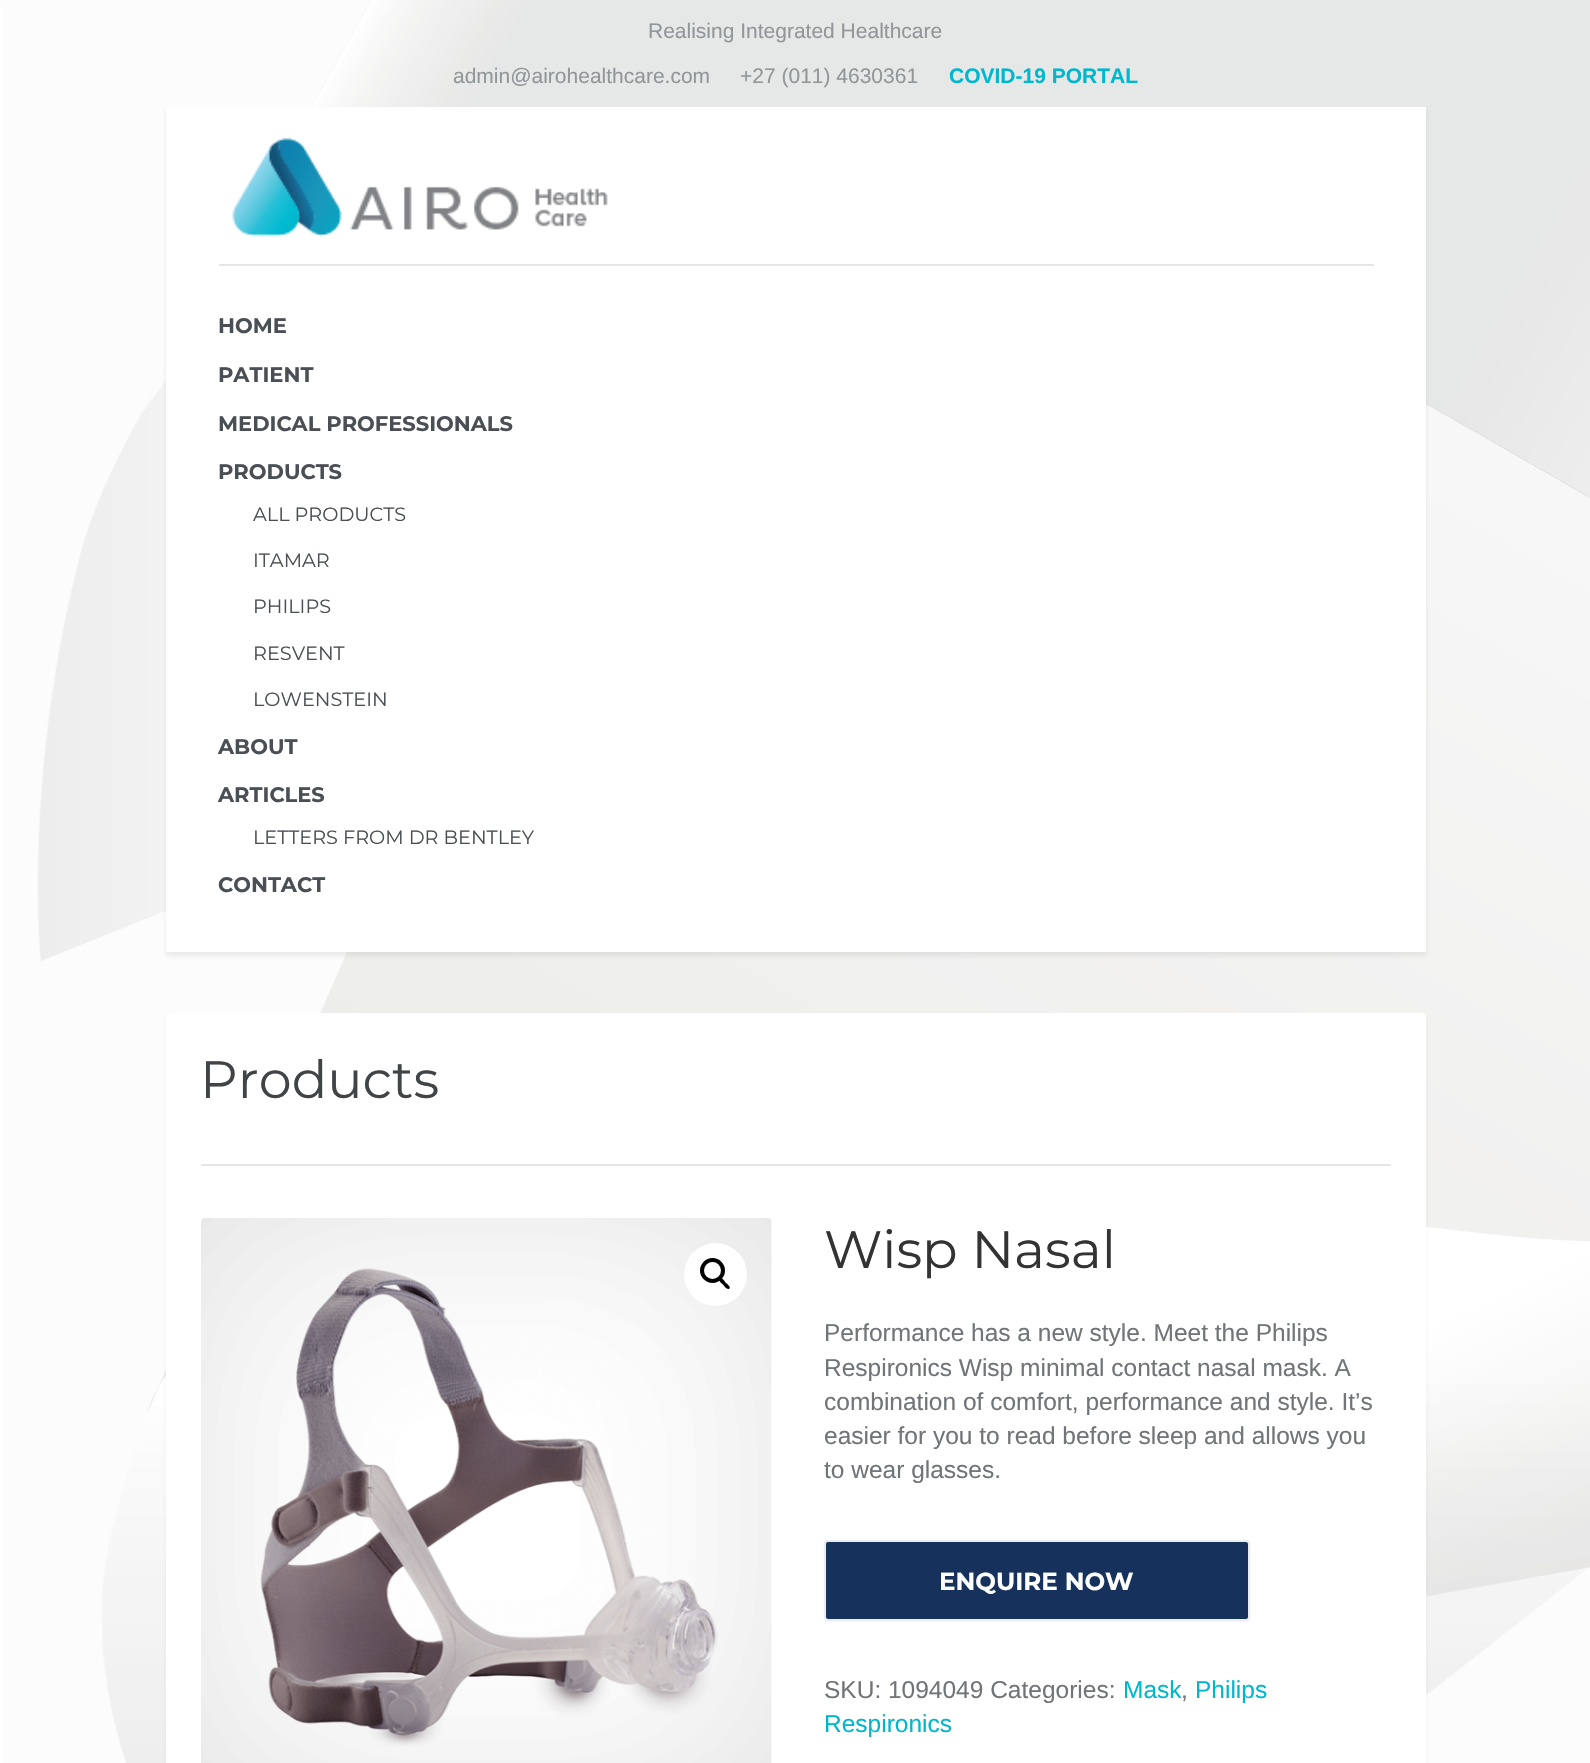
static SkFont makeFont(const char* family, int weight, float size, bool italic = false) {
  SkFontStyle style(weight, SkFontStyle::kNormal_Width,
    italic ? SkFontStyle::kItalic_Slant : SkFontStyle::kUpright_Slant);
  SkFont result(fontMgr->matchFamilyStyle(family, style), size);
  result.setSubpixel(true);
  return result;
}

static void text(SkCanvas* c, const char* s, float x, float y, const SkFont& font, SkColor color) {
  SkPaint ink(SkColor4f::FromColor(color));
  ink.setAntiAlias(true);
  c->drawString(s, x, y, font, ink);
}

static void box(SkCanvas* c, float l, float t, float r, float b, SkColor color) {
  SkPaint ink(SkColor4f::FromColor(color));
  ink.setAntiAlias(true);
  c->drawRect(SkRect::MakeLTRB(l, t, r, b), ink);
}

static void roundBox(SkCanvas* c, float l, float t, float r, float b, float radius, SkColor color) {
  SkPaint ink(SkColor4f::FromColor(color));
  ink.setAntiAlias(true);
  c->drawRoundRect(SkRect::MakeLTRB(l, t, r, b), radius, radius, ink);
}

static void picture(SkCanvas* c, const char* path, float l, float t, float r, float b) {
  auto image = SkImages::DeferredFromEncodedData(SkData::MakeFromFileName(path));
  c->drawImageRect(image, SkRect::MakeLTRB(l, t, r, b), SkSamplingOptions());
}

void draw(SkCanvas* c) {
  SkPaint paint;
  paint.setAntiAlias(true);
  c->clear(0xffffffff);
  picture(c, "img_01.png", 0, 0, 1590, 1763);
  SkFont face1 = makeFont("Liberation Sans", 400, 21);
  text(c, "Realising Integrated Healthcare", 648, 38, face1, 0xff919699);
  text(c, "admin@airohealthcare.com", 453, 83, face1, 0xff919699);
  text(c, "+27 (011) 4630361", 740, 83, face1, 0xff919699);
  SkFont face2 = makeFont("Liberation Sans", 700, 21);
  text(c, "COVID-19 PORTAL", 949, 83, face2, 0xff00b7ce);
  paint.setColor(0x141f1f1f);
  paint.setMaskFilter(SkMaskFilter::MakeBlur(kNormal_SkBlurStyle, 2.5f));
  c->drawRect(SkRect::MakeLTRB(166, 110, 1426, 956), paint);
  paint.setMaskFilter(nullptr);
  box(c, 166, 107, 1426, 952, 0xffffffff);
  picture(c, "img_02.png", 232, 137, 608, 237);
  box(c, 219, 264, 1374, 266, 0xffe6e6e6);
  SkFont face3 = makeFont("Montserrat", 700, 21);
  text(c, "HOME", 218, 333, face3, 0xff4a4f55);
  text(c, "PATIENT", 218, 382, face3, 0xff4a4f55);
  text(c, "MEDICAL PROFESSIONALS", 218, 431, face3, 0xff4a4f55);
  text(c, "PRODUCTS", 218, 479, face3, 0xff4a4f55);
  SkFont face4 = makeFont("Montserrat", 400, 19.25f);
  text(c, "ALL PRODUCTS", 253, 521, face4, 0xff4a4f55);
  text(c, "ITAMAR", 253, 567, face4, 0xff4a4f55);
  text(c, "PHILIPS", 253, 613, face4, 0xff4a4f55);
  text(c, "RESVENT", 253, 660, face4, 0xff4a4f55);
  text(c, "LOWENSTEIN", 253, 706, face4, 0xff4a4f55);
  text(c, "ABOUT", 218, 754, face3, 0xff4a4f55);
  text(c, "ARTICLES", 218, 802, face3, 0xff4a4f55);
  text(c, "LETTERS FROM DR BENTLEY", 253, 844, face4, 0xff4a4f55);
  text(c, "CONTACT", 218, 892, face3, 0xff4a4f55);
  paint.setColor(0x0d1f1f1f);
  paint.setMaskFilter(SkMaskFilter::MakeBlur(kNormal_SkBlurStyle, 2.5f));
  c->drawRoundRect(SkRect::MakeLTRB(166, 1017, 1426, 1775), 4, 4, paint);
  paint.setMaskFilter(nullptr);
  roundBox(c, 166, 1013, 1426, 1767, 4, 0xffffffff);
  box(c, 201, 1164, 1391, 1166, 0xffe6e6e6);
  SkFont face5 = makeFont("Montserrat", 400, 52.5f);
  text(c, "Products", 200, 1098, face5, 0xff414447);
  picture(c, "img_03.png", 201, 1218, 772, 1763);
  paint.setColor(0xffffffff);
  c->drawCircle(715.5f, 1274.5f, 31.5f, paint);
  paint.setStyle(SkPaint::kStroke_Style);
  paint.setStrokeWidth(4);
  paint.setColor(0xff000000);
  c->drawCircle(712.5f, 1270.5f, 10.5f, paint);
  paint.setStyle(SkPaint::kFill_Style);
  c->drawPath(SkPathBuilder().moveTo(719.5f, 1278.5f).cubicTo(721.5f, 1276.5f, 724.5f, 1281, 725.5f, 1282.5f).cubicTo(726.5f, 1283.5f, 731, 1286.5f, 729.5f, 1288.5f).cubicTo(727.5f, 1290.5f, 724, 1286, 723, 1284.5f).cubicTo(722, 1283.5f, 717.5f, 1280.5f, 719.5f, 1278.5f).close().detach(), paint);
  text(c, "Wisp Nasal", 824, 1268, face5, 0xff333333);
  SkFont face6 = makeFont("Liberation Sans", 400, 24.5f);
  text(c, "Performance has a new style. Meet the Philips", 824, 1341, face6, 0xff717579);
  text(c, "Respironics Wisp minimal contact nasal mask. A", 824, 1376, face6, 0xff717579);
  text(c, "combination of comfort, performance and style. It’s", 824, 1410, face6, 0xff717579);
  text(c, "easier for you to read before sleep and allows you", 824, 1444, face6, 0xff717579);
  text(c, "to wear glasses.", 824, 1478, face6, 0xff717579);
  paint.setColor(0x0d1f1f1f);
  paint.setMaskFilter(SkMaskFilter::MakeBlur(kNormal_SkBlurStyle, 1));
  c->drawRoundRect(SkRect::MakeLTRB(824, 1542, 1250, 1622), 4, 4, paint);
  paint.setMaskFilter(nullptr);
  paint.setColor(0xff16325c);
  c->drawRoundRect(SkRect::MakeLTRB(825, 1541, 1249, 1620), 3, 3, paint);
  paint.setStyle(SkPaint::kStroke_Style);
  paint.setStrokeWidth(2);
  paint.setColor(0xffebedf2);
  c->drawRoundRect(SkRect::MakeLTRB(825, 1541, 1249, 1620), 3, 3, paint);
  SkFont face7 = makeFont("Montserrat", 700, 24.5f);
  text(c, "ENQUIRE NOW", 939, 1590, face7, 0xffffffff);
  text(c, "SKU: 1094049 Categories:", 824, 1698, face6, 0xff717579);
  text(c, "Mask", 1123, 1698, face6, 0xff00b7ce);
  text(c, ",", 1181, 1698, face6, 0xff717579);
  text(c, "Philips", 1195, 1698, face6, 0xff00b7ce);
  text(c, "Respironics", 824, 1732, face6, 0xff00b7ce);
}
